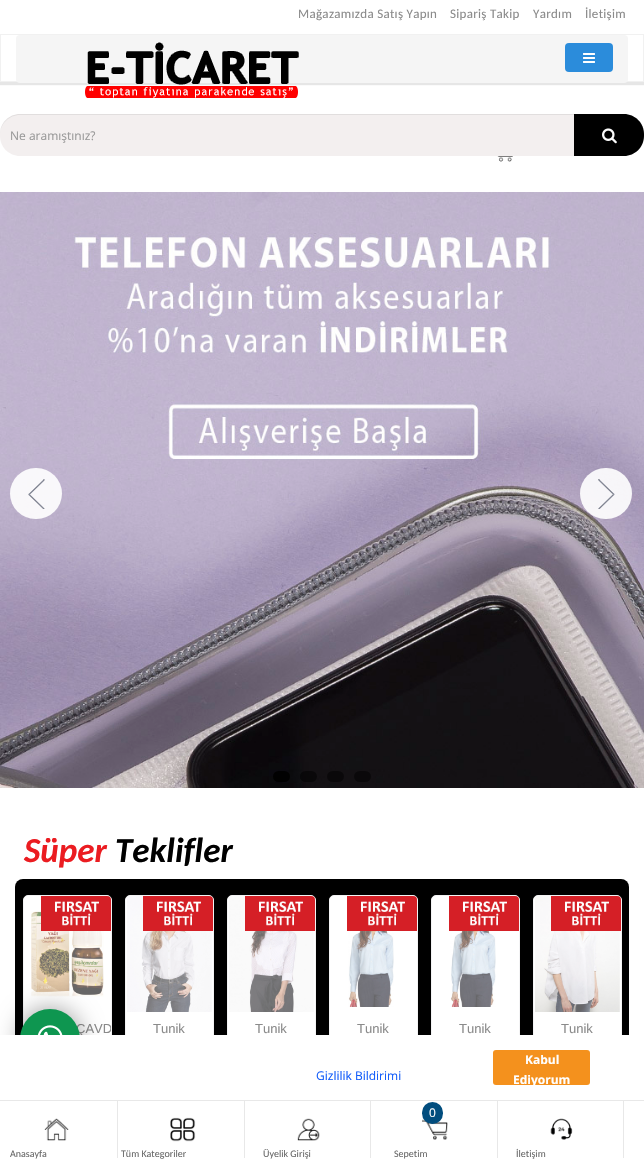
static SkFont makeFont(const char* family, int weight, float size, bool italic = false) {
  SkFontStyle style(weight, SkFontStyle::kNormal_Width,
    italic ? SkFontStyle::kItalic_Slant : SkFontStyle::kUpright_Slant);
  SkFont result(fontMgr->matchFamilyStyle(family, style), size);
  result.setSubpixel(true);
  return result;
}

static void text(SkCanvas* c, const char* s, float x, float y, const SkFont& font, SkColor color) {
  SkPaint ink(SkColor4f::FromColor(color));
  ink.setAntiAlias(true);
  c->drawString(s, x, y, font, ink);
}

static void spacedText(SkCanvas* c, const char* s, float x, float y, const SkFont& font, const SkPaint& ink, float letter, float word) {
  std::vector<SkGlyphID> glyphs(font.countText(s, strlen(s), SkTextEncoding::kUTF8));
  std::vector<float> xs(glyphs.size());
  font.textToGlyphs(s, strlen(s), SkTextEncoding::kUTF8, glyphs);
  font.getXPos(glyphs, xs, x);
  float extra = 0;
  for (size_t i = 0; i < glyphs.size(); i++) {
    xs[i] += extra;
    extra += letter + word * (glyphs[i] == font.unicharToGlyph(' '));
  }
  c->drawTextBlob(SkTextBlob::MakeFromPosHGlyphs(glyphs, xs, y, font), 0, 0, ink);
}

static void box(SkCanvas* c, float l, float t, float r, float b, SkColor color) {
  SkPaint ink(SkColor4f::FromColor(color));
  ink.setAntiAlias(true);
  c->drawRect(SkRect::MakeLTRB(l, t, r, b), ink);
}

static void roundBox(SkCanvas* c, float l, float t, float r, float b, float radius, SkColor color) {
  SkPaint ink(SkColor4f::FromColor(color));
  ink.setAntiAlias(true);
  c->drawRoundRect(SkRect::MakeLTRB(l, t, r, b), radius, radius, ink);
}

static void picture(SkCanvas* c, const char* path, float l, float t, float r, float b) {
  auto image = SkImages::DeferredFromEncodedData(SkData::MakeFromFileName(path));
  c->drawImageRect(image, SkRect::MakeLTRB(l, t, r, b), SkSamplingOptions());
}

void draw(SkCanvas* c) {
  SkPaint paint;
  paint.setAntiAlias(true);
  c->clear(0xffffffff);
  SkFont face1 = makeFont("Carlito", 400, 13);
  paint.setColor(0xff8b8b8b);
  spacedText(c, "Mağazamızda Satış Yapın", 298, 18, face1, paint, 0.3f, 0);
  spacedText(c, "Sipariş Takip", 450, 18, face1, paint, 0.3f, 0);
  spacedText(c, "Yardım", 533, 18, face1, paint, 0.3f, 0);
  spacedText(c, "İletişim", 585, 18, face1, paint, 0.3f, 0);
  paint.setColor(0xffe6e6e6);
  paint.setMaskFilter(SkMaskFilter::MakeBlur(kNormal_SkBlurStyle, 0.5f));
  c->drawRect(SkRect::MakeLTRB(0, 37, 644, 85), paint);
  paint.setMaskFilter(nullptr);
  box(c, 1, 36, 643, 81, 0xffffffff);
  paint.setStyle(SkPaint::kStroke_Style);
  paint.setStrokeWidth(1);
  paint.setColor(0xfff1f1f1);
  c->drawRect(SkRect::MakeLTRB(0.5f, 34.5f, 643.5f, 81.5f), paint);
  roundBox(c, 16, 35, 628, 83, 4, 0xfff5f5f5);
  roundBox(c, 565, 43, 613, 72, 4, 0xff2b8cdb);
  picture(c, "img_01.png", 583, 53, 595, 63);
  picture(c, "img_02.png", 85, 42, 299, 98);
  paint.setStyle(SkPaint::kFill_Style);
  paint.setColor(0xfff3efef);
  c->drawPath(SkPathBuilder().moveTo(20, 114).lineTo(575, 114).lineTo(575, 156).lineTo(20, 156).cubicTo(9, 156, 0, 147, 0, 136).lineTo(0, 134).cubicTo(0, 123, 9, 114, 20, 114).close().detach(), paint);
  paint.setColor(0x12000000);
  c->drawPath(SkPathBuilder().moveTo(20, 115).lineTo(575, 115).lineTo(575, 114).lineTo(20, 114).cubicTo(9, 114, 0, 123, 0, 134).lineTo(0, 135).cubicTo(0, 124, 9, 115, 20, 115).close().detach(), paint);
  SkFont face2 = makeFont("Open Sans", 400, 12);
  text(c, "Ne aramıştınız?", 10, 140, face2, 0xff999999);
  paint.setColor(0xff000000);
  c->drawPath(SkPathBuilder().moveTo(574, 114).lineTo(624, 114).cubicTo(635, 114, 644, 123, 644, 134).lineTo(644, 136).cubicTo(644, 147, 635, 156, 624, 156).lineTo(574, 156).close().detach(), paint);
  picture(c, "img_03.png", 602, 128, 617, 144);
  picture(c, "img_04.png", 497, 156, 513, 162);
  picture(c, "img_05.png", 0, 192, 644, 788);
  roundBox(c, 10, 468, 62, 519, 25.5f, 0xe6ffffff);
  picture(c, "img_06.png", 28, 479, 45, 509);
  roundBox(c, 580, 468, 632, 519, 25.5f, 0xe6ffffff);
  picture(c, "img_07.png", 598, 479, 615, 509);
  roundBox(c, 273, 771, 290, 782, 5.5f, 0xe6000000);
  roundBox(c, 300, 771, 317, 782, 5.5f, 0x80000000);
  roundBox(c, 327, 771, 344, 782, 5.5f, 0xff0a080a);
  roundBox(c, 354, 771, 371, 782, 5.5f, 0xff0a080a);
  SkFont face3 = makeFont("Carlito", 700, 35, true);
  text(c, "Süper", 24, 862, face3, 0xffeb1c21);
  text(c, "Teklifler", 115, 862, face3, 0xff000000);
  roundBox(c, 15, 879, 629, 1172, 8, 0xff000000);
  paint.setColor(0xffffffff);
  c->drawRoundRect(SkRect::MakeLTRB(23.5f, 895.5f, 111.5f, 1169.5f), 4.5f, 4.5f, paint);
  paint.setStyle(SkPaint::kStroke_Style);
  paint.setColor(0xfff3f3f4);
  c->drawRoundRect(SkRect::MakeLTRB(23.5f, 895.5f, 111.5f, 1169.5f), 4.5f, 4.5f, paint);
  picture(c, "img_09.png", 31, 911, 104, 997);
  picture(c, "img_08.png", 41, 896, 111, 931);
  c->save();
  c->clipPath(SkPathBuilder().moveTo(28, 896).lineTo(107, 896).cubicTo(109, 896, 111, 898, 111, 900).lineTo(111, 1311).cubicTo(111, 1313, 109, 1315, 107, 1315).lineTo(28, 1315).cubicTo(26, 1315, 24, 1313, 24, 1311).lineTo(24, 900).cubicTo(24, 898, 26, 896, 28, 896).close().detach(), true);
  SkFont face4 = makeFont("Liberation Sans", 400, 13);
  text(c, "ÇAVD", 76, 1033, face4, 0xff8b8b8b);
  c->restore();
  paint.setStyle(SkPaint::kFill_Style);
  paint.setColor(0xffffffff);
  c->drawRoundRect(SkRect::MakeLTRB(125.5f, 895.5f, 213.5f, 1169.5f), 4.5f, 4.5f, paint);
  paint.setStyle(SkPaint::kStroke_Style);
  paint.setColor(0xfff3f3f4);
  c->drawRoundRect(SkRect::MakeLTRB(125.5f, 895.5f, 213.5f, 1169.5f), 4.5f, 4.5f, paint);
  picture(c, "img_10.png", 127, 896, 212, 1012);
  picture(c, "img_11.png", 143, 896, 213, 931);
  text(c, "Tunik", 153, 1033, face4, 0xff8b8b8b);
  paint.setStyle(SkPaint::kFill_Style);
  paint.setColor(0xffffffff);
  c->drawRoundRect(SkRect::MakeLTRB(227.5f, 895.5f, 315.5f, 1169.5f), 4.5f, 4.5f, paint);
  paint.setStyle(SkPaint::kStroke_Style);
  paint.setColor(0xfff3f3f4);
  c->drawRoundRect(SkRect::MakeLTRB(227.5f, 895.5f, 315.5f, 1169.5f), 4.5f, 4.5f, paint);
  picture(c, "img_12.png", 229, 896, 314, 1012);
  picture(c, "img_13.png", 245, 896, 315, 931);
  text(c, "Tunik", 255, 1033, face4, 0xff8b8b8b);
  paint.setStyle(SkPaint::kFill_Style);
  paint.setColor(0xffffffff);
  c->drawRoundRect(SkRect::MakeLTRB(329.5f, 895.5f, 417.5f, 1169.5f), 4.5f, 4.5f, paint);
  paint.setStyle(SkPaint::kStroke_Style);
  paint.setColor(0xfff3f3f4);
  c->drawRoundRect(SkRect::MakeLTRB(329.5f, 895.5f, 417.5f, 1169.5f), 4.5f, 4.5f, paint);
  picture(c, "img_14.png", 347, 896, 417, 931);
  picture(c, "img_15.png", 348, 931, 394, 1007);
  text(c, "Tunik", 357, 1033, face4, 0xff8b8b8b);
  paint.setStyle(SkPaint::kFill_Style);
  paint.setColor(0xffffffff);
  c->drawRoundRect(SkRect::MakeLTRB(431.5f, 895.5f, 519.5f, 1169.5f), 4.5f, 4.5f, paint);
  paint.setStyle(SkPaint::kStroke_Style);
  paint.setColor(0xfff3f3f4);
  c->drawRoundRect(SkRect::MakeLTRB(431.5f, 895.5f, 519.5f, 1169.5f), 4.5f, 4.5f, paint);
  picture(c, "img_08.png", 449, 896, 519, 931);
  picture(c, "img_16.png", 450, 931, 496, 1007);
  text(c, "Tunik", 459, 1033, face4, 0xff8b8b8b);
  paint.setStyle(SkPaint::kFill_Style);
  paint.setColor(0xffffffff);
  c->drawRoundRect(SkRect::MakeLTRB(533.5f, 895.5f, 621.5f, 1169.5f), 4.5f, 4.5f, paint);
  paint.setStyle(SkPaint::kStroke_Style);
  paint.setColor(0xfff3f3f4);
  c->drawRoundRect(SkRect::MakeLTRB(533.5f, 895.5f, 621.5f, 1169.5f), 4.5f, 4.5f, paint);
  picture(c, "img_17.png", 535, 896, 620, 1012);
  picture(c, "img_18.png", 551, 896, 621, 931);
  text(c, "Tunik", 561, 1033, face4, 0xff8b8b8b);
  paint.setStyle(SkPaint::kFill_Style);
  paint.setColor(0x66000000);
  paint.setMaskFilter(SkMaskFilter::MakeBlur(kNormal_SkBlurStyle, 12.5f));
  c->drawRoundRect(SkRect::MakeLTRB(20, 1009, 80, 1069), 30, 30, paint);
  paint.setMaskFilter(nullptr);
  paint.setColor(0xff0e9650);
  c->drawCircle(50, 1039, 30, paint);
  picture(c, "img_19.png", 37, 1025, 63, 1035);
  box(c, 0, 1035, 629, 1100, 0xffffffff);
  text(c, "Gizlilik Bildirimi", 316, 1080, face2, 0xff115cfa);
  roundBox(c, 493, 1050, 590, 1085, 3, 0xfff4911d);
  SkFont face5 = makeFont("Open Sans", 700, 12);
  text(c, "Kabul", 525, 1064, face5, 0xffffffff);
  text(c, "Ediyorum", 513, 1084, face5, 0xffffffff);
  box(c, 15, 1101, 629, 1164, 0xffffffff);
  box(c, 0, 1100, 644, 1101, 0xffe8e8e8);
  box(c, 117, 1101, 118, 1158, 0xffe8e8e8);
  picture(c, "img_20.png", 44, 1118, 69, 1141);
  SkFont face6 = makeFont("Carlito", 400, 10);
  text(c, "Anasayfa", 10, 1157, face6, 0xff696969);
  box(c, 244, 1101, 245, 1158, 0xffe8e8e8);
  picture(c, "img_21.png", 170, 1117, 196, 1142);
  text(c, "Tüm Kategoriler", 121, 1157, face6, 0xff696969);
  box(c, 370, 1101, 371, 1158, 0xffe8e8e8);
  picture(c, "img_22.png", 297, 1118, 320, 1141);
  text(c, "Üyelik Girişi", 263, 1157, face6, 0xff696969);
  box(c, 497, 1101, 498, 1158, 0xffe8e8e8);
  picture(c, "img_23.png", 422, 1119, 448, 1140);
  roundBox(c, 422, 1102, 443, 1124, 10.5f, 0xff014d7e);
  text(c, "0", 429, 1117, face2, 0xffffffff);
  text(c, "Sepetim", 394, 1157, face6, 0xff696969);
  box(c, 623, 1101, 624, 1158, 0xffe8e8e8);
  picture(c, "img_24.png", 550, 1118, 573, 1140);
  text(c, "İletişim", 516, 1157, face6, 0xff696969);
}
